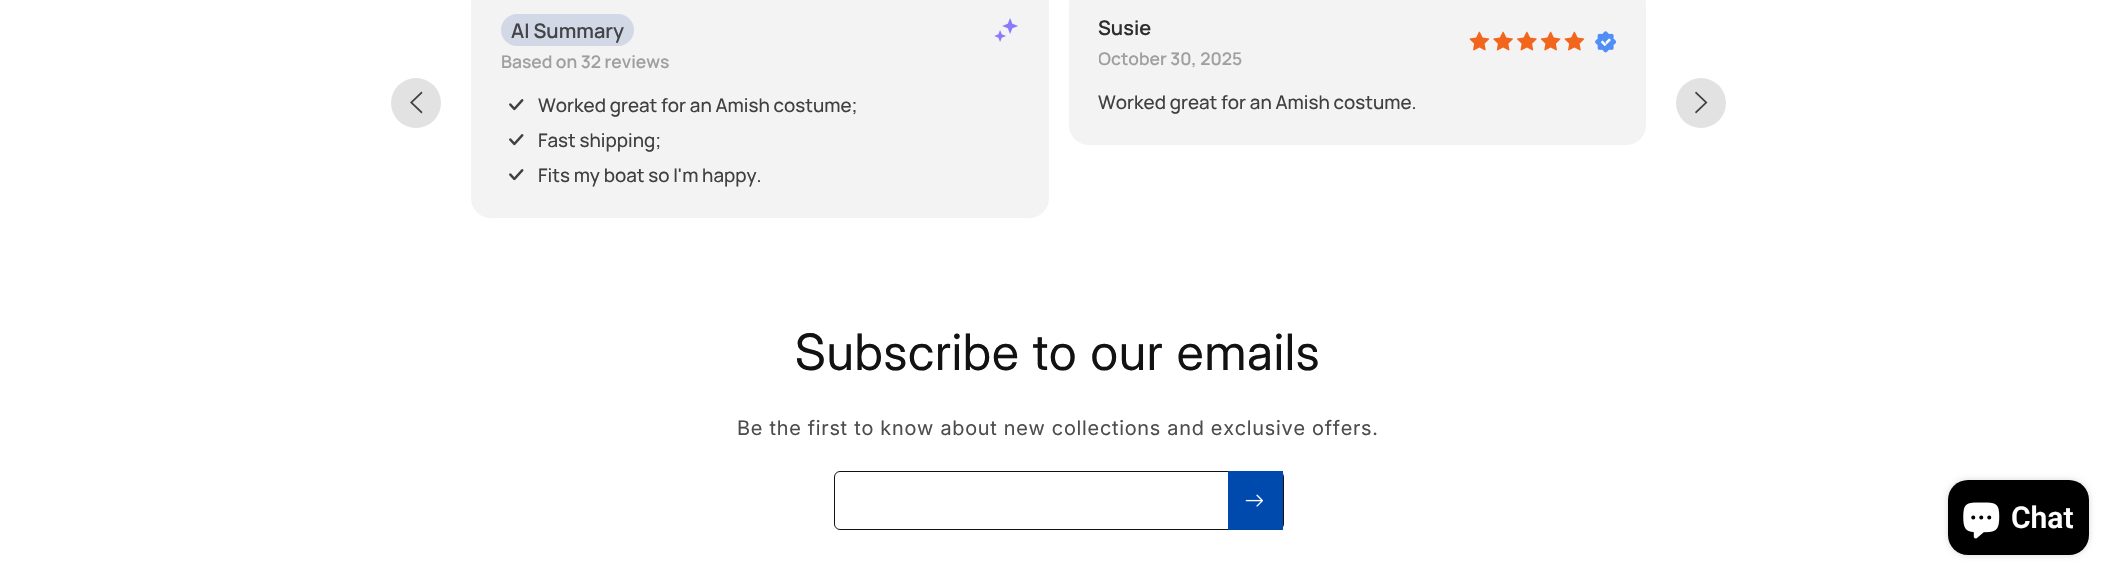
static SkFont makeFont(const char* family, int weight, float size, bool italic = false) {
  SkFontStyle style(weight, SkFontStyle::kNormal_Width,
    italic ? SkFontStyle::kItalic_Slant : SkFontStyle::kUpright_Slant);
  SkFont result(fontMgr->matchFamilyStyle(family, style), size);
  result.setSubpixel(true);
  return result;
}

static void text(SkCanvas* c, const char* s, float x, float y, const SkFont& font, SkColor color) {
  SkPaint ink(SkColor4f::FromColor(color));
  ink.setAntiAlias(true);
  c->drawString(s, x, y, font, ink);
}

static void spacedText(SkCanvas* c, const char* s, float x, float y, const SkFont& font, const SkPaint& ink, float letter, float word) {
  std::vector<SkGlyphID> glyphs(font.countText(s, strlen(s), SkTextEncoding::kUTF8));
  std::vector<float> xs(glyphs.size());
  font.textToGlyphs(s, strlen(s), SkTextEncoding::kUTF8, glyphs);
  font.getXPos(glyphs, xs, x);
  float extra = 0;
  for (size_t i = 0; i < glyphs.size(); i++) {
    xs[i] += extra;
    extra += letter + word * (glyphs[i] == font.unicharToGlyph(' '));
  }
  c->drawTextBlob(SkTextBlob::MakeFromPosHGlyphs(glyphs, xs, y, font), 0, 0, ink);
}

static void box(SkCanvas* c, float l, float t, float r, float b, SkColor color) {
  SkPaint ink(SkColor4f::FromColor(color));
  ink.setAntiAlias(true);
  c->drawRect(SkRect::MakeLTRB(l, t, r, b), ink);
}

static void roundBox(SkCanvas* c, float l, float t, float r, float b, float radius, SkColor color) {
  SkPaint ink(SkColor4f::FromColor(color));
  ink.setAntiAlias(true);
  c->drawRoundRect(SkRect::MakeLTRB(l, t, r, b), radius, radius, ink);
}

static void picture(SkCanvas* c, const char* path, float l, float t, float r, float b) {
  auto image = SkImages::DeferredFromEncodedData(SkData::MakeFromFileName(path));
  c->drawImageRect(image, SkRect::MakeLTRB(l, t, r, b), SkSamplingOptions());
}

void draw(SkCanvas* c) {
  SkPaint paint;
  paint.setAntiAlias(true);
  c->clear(0xffffffff);
  paint.setColor(0xffe2e2e2);
  c->drawCircle(416, 103, 25, paint);
  paint.setColor(0xff404040);
  c->drawPath(SkPathBuilder().moveTo(422.5f, 112).lineTo(421.5f, 113.5f).lineTo(410, 102.5f).lineTo(421.5f, 91.5f).lineTo(422.5f, 93).lineTo(412.5f, 102.5f).close().detach(), paint);
  roundBox(c, 471, -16, 1049, 218, 20, 0xfff3f3f3);
  roundBox(c, 501, 14, 634, 46, 16, 0xffd3d8e7);
  SkFont face1 = makeFont("Manrope", 600, 20);
  text(c, "AI Summary", 511, 38, face1, 0xff424447);
  picture(c, "img_01.png", 994, 18, 1018, 42);
  SkFont face2 = makeFont("Manrope", 600, 17.5f);
  text(c, "Based on 32 reviews", 501, 68, face2, 0xff9f9f9f);
  picture(c, "img_02.png", 509, 99, 524, 111);
  SkFont face3 = makeFont("Manrope", 500, 18.75f);
  text(c, "Worked great for an Amish costume;", 538, 112, face3, 0xff404040);
  picture(c, "img_02.png", 509, 134, 524, 146);
  text(c, "Fast shipping;", 538, 147, face3, 0xff404040);
  picture(c, "img_02.png", 509, 169, 524, 181);
  text(c, "Fits my boat so I'm happy.", 538, 182, face3, 0xff404040);
  roundBox(c, 1069, -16, 1646, 145, 20, 0xfff3f3f3);
  text(c, "Susie", 1098, 35, face1, 0xff2e2e2e);
  c->save();
  c->clipRect(SkRect::MakeLTRB(1099, 14, 1243, 70));
  text(c, "October 30, 2025", 1098, 65, face2, 0xff9f9f9f);
  c->restore();
  picture(c, "img_03.png", 1469, 31, 1490, 51);
  picture(c, "img_04.png", 1493, 31, 1513, 51);
  picture(c, "img_05.png", 1517, 31, 1537, 51);
  picture(c, "img_06.png", 1540, 31, 1561, 51);
  picture(c, "img_03.png", 1564, 31, 1585, 51);
  picture(c, "img_07.png", 1595, 31, 1616, 53);
  text(c, "Worked great for an Amish costume.", 1098, 109, face3, 0xff404040);
  paint.setColor(0xffe2e2e2);
  c->drawCircle(1701, 103, 25, paint);
  paint.setColor(0xff404040);
  c->drawPath(SkPathBuilder().moveTo(1695, 93).lineTo(1696, 91.5f).lineTo(1707.5f, 102.5f).lineTo(1696, 113.5f).lineTo(1695, 112).lineTo(1705, 102.5f).close().detach(), paint);
  SkFont face4 = makeFont("Inter", 400, 50);
  paint.setColor(0xff121212);
  spacedText(c, "Subscribe to our emails", 795, 370, face4, paint, 0.75f, 0);
  SkFont face5 = makeFont("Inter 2", 400, 20);
  paint.setColor(0xff4d4d4d);
  spacedText(c, "Be the first to know about new collections and exclusive offers.", 737, 435, face5, paint, 0.75f, 0);
  paint.setStyle(SkPaint::kStroke_Style);
  paint.setStrokeWidth(1);
  paint.setColor(0xff121212);
  c->drawRoundRect(SkRect::MakeLTRB(834.5f, 471.5f, 1283.5f, 529.5f), 5.5f, 5.5f, paint);
  box(c, 1228, 471, 1283, 530, 0xff004aad);
  picture(c, "img_08.png", 1245, 494, 1263, 507);
  paint.setStyle(SkPaint::kFill_Style);
  paint.setColor(0x26000000);
  paint.setMaskFilter(SkMaskFilter::MakeBlur(kNormal_SkBlurStyle, 3));
  c->drawRoundRect(SkRect::MakeLTRB(1948, 480, 2089, 555), 20, 20, paint);
  paint.setMaskFilter(nullptr);
  roundBox(c, 1948, 480, 2089, 555, 20, 0xff000000);
  picture(c, "img_09.png", 1963, 502, 2000, 539);
  SkFont face6 = makeFont("Roboto", 600, 30);
  text(c, "Chat", 2011, 528, face6, 0xffffffff);
}
